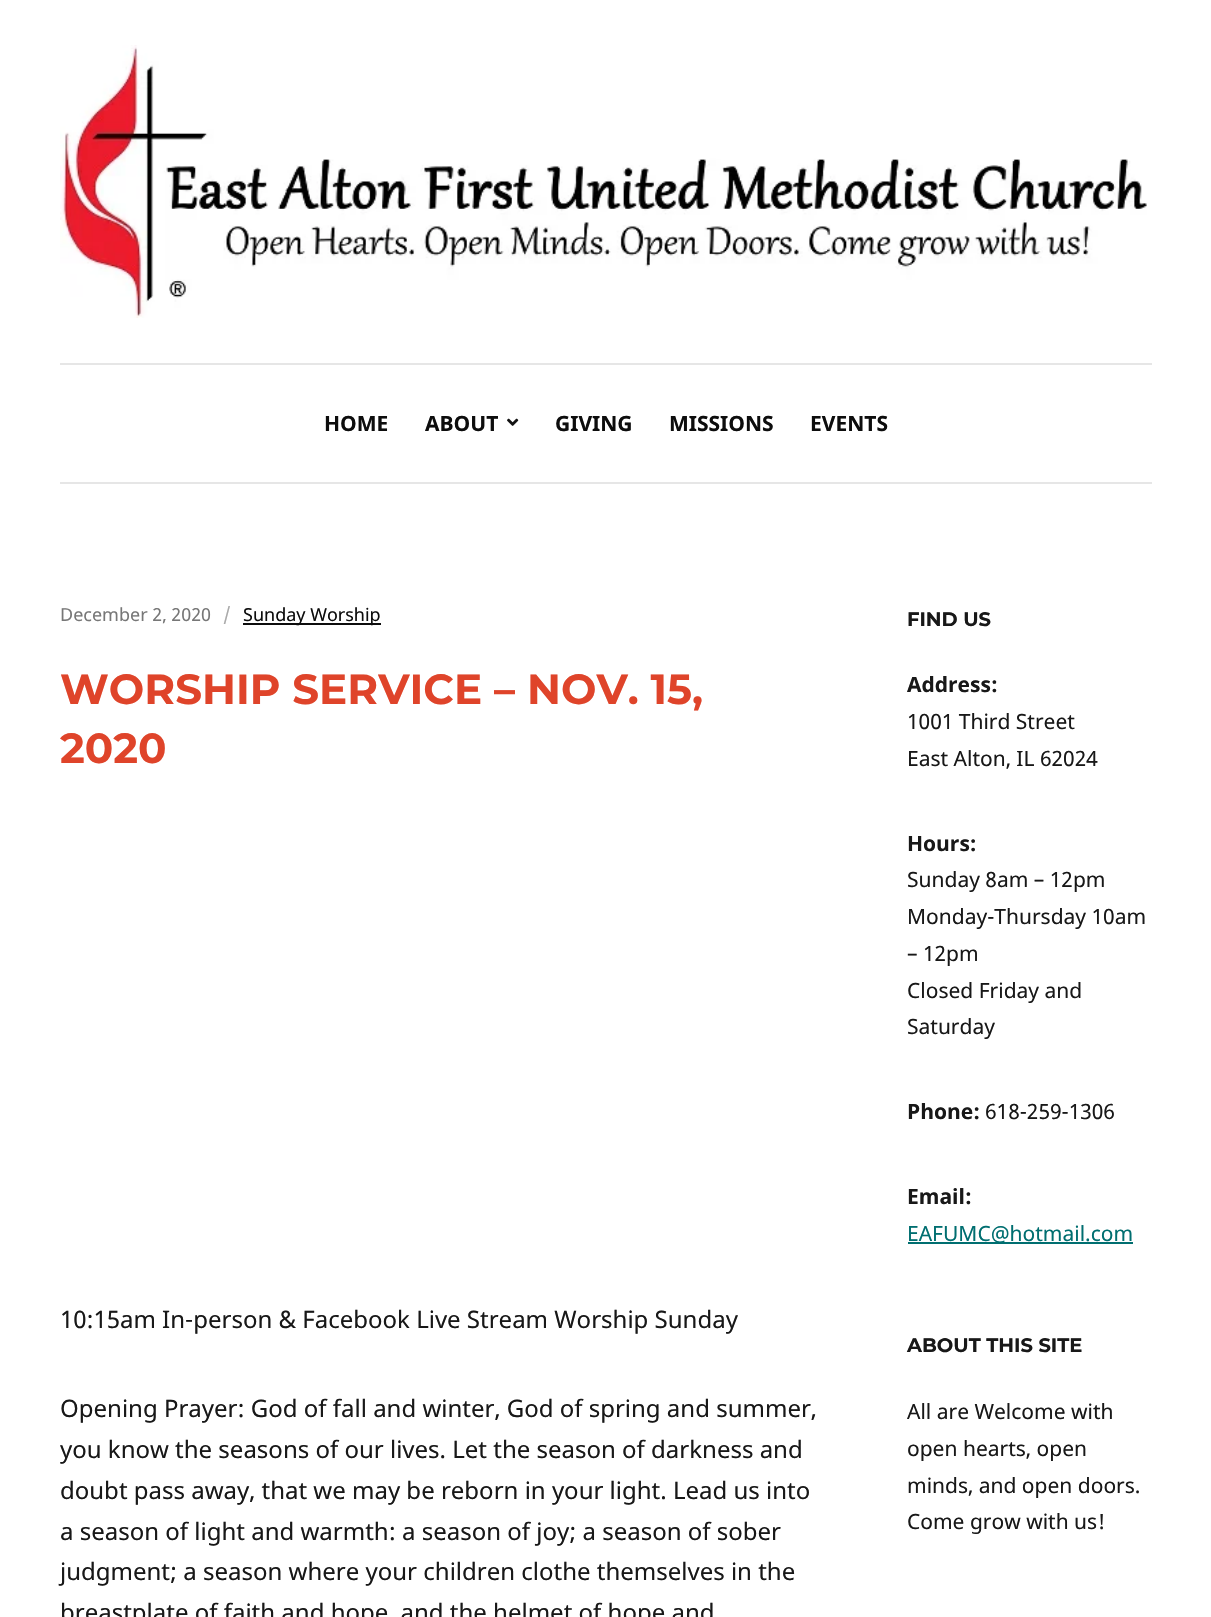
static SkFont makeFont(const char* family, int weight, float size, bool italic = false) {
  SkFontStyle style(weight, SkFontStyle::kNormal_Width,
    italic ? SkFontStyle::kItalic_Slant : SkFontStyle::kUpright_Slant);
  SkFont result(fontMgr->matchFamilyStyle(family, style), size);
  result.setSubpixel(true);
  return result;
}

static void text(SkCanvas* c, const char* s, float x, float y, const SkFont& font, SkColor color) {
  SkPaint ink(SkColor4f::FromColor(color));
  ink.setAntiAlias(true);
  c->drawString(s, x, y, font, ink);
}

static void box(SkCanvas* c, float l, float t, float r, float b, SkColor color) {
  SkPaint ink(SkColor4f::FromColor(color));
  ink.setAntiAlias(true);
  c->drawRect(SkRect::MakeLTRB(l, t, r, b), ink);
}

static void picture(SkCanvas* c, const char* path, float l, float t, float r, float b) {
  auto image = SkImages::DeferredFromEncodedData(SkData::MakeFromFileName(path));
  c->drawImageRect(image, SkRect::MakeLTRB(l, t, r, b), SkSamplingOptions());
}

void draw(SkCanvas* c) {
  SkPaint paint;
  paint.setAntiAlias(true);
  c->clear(0xffffffff);
  picture(c, "img_01.png", 60, 45, 1147, 318);
  box(c, 60, 363, 1152, 365, 0xffe6e6e6);
  box(c, 60, 482, 1152, 484, 0xffe6e6e6);
  SkFont face1 = makeFont("Noto Sans", 700, 21);
  text(c, "HOME", 324, 431, face1, 0xff0d0d0d);
  text(c, "ABOUT", 425, 431, face1, 0xff0d0d0d);
  picture(c, "img_02.png", 507, 418, 519, 426);
  text(c, "GIVING", 555, 431, face1, 0xff0d0d0d);
  text(c, "MISSIONS", 669, 431, face1, 0xff0d0d0d);
  text(c, "EVENTS", 810, 431, face1, 0xff0d0d0d);
  SkFont face2 = makeFont("Noto Sans", 400, 18);
  text(c, "December 2, 2020", 60, 621, face2, 0xff777777);
  text(c, "/", 223, 621, face2, 0xffaaaaaa);
  box(c, 243, 623, 381, 625, 0xff0d0d0d);
  text(c, "Sunday Worship", 243, 621, face2, 0xff0d0d0d);
  SkFont face3 = makeFont("Montserrat", 100, 42);
  text(c, "WORSHIP SERVICE – NOV. 15,", 60, 704, face3, 0xffdf442a);
  text(c, "2020", 60, 763, face3, 0xffdf442a);
  SkFont face4 = makeFont("Noto Sans", 400, 24);
  text(c, "10:15am In-person & Facebook Live Stream Worship Sunday", 60, 1328, face4, 0xff181818);
  text(c, "Opening Prayer: God of fall and winter, God of spring and summer,", 60, 1417, face4, 0xff181818);
  text(c, "you know the seasons of our lives. Let the season of darkness and", 60, 1458, face4, 0xff181818);
  text(c, "doubt pass away, that we may be reborn in your light. Lead us into", 60, 1499, face4, 0xff181818);
  text(c, "a season of light and warmth: a season of joy; a season of sober", 60, 1540, face4, 0xff181818);
  text(c, "judgment; a season where your children clothe themselves in the", 60, 1580, face4, 0xff181818);
  text(c, "breastplate of faith and hope, and the helmet of hope and", 60, 1621, face4, 0xff181818);
  SkFont face5 = makeFont("Montserrat", 100, 19.5f);
  text(c, "FIND US", 907, 626, face5, 0xff181818);
  text(c, "Address:", 907, 692, face1, 0xff181818);
  SkFont face6 = makeFont("Noto Sans", 400, 21);
  text(c, "1001 Third Street", 907, 729, face6, 0xff181818);
  text(c, "East Alton, IL 62024", 907, 766, face6, 0xff181818);
  text(c, "Hours:", 907, 851, face1, 0xff181818);
  text(c, "Sunday 8am – 12pm", 907, 887, face6, 0xff181818);
  text(c, "Monday-Thursday 10am", 907, 924, face6, 0xff181818);
  text(c, "– 12pm", 907, 961, face6, 0xff181818);
  text(c, "Closed Friday and", 907, 998, face6, 0xff181818);
  text(c, "Saturday", 907, 1034, face6, 0xff181818);
  text(c, "Phone:", 907, 1119, face1, 0xff181818);
  text(c, "618-259-1306", 985, 1119, face6, 0xff181818);
  text(c, "Email:", 907, 1204, face1, 0xff181818);
  box(c, 908, 1242, 1133, 1244, 0xff006e70);
  text(c, "EAFUMC@hotmail.com", 907, 1241, face6, 0xff006e70);
  text(c, "ABOUT THIS SITE", 907, 1352, face5, 0xff181818);
  text(c, "All are Welcome with", 907, 1419, face6, 0xff181818);
  text(c, "open hearts, open", 907, 1456, face6, 0xff181818);
  text(c, "minds, and open doors.", 907, 1493, face6, 0xff181818);
  text(c, "Come grow with us!", 907, 1529, face6, 0xff181818);
}
